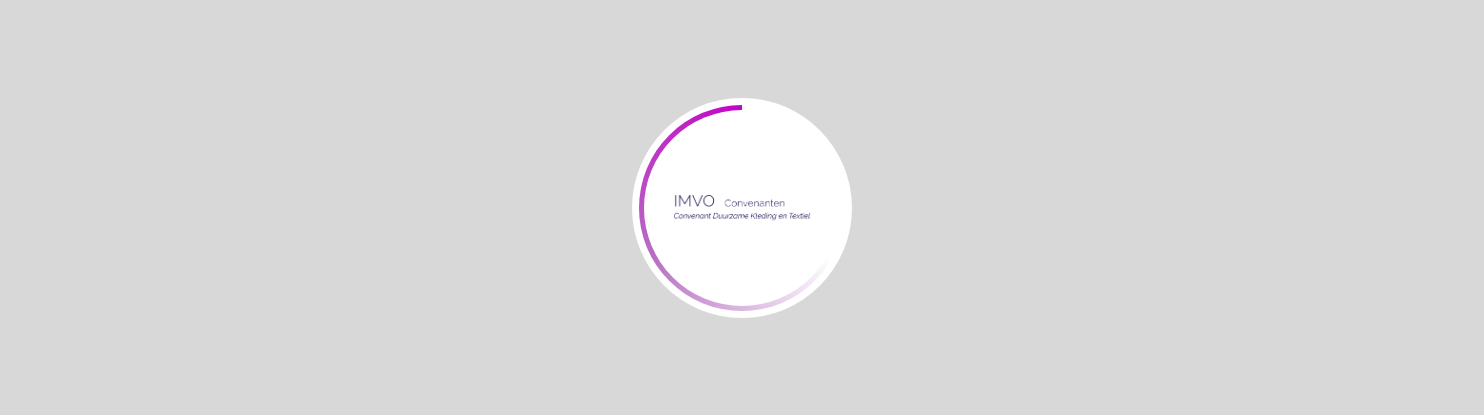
static void picture(SkCanvas* c, const char* path, float l, float t, float r, float b) {
  auto image = SkImages::DeferredFromEncodedData(SkData::MakeFromFileName(path));
  c->drawImageRect(image, SkRect::MakeLTRB(l, t, r, b), SkSamplingOptions());
}

void draw(SkCanvas* c) {
  SkPaint paint;
  paint.setAntiAlias(true);
  c->clear(0xffd8d8d8);
  paint.setColor(0xffffffff);
  c->drawCircle(742, 208, 110, paint);
  picture(c, "img_01.png", 639, 105, 829, 311);
  c->drawCircle(742, 208, 98, paint);
  picture(c, "img_02.png", 674, 195, 811, 221);
}
